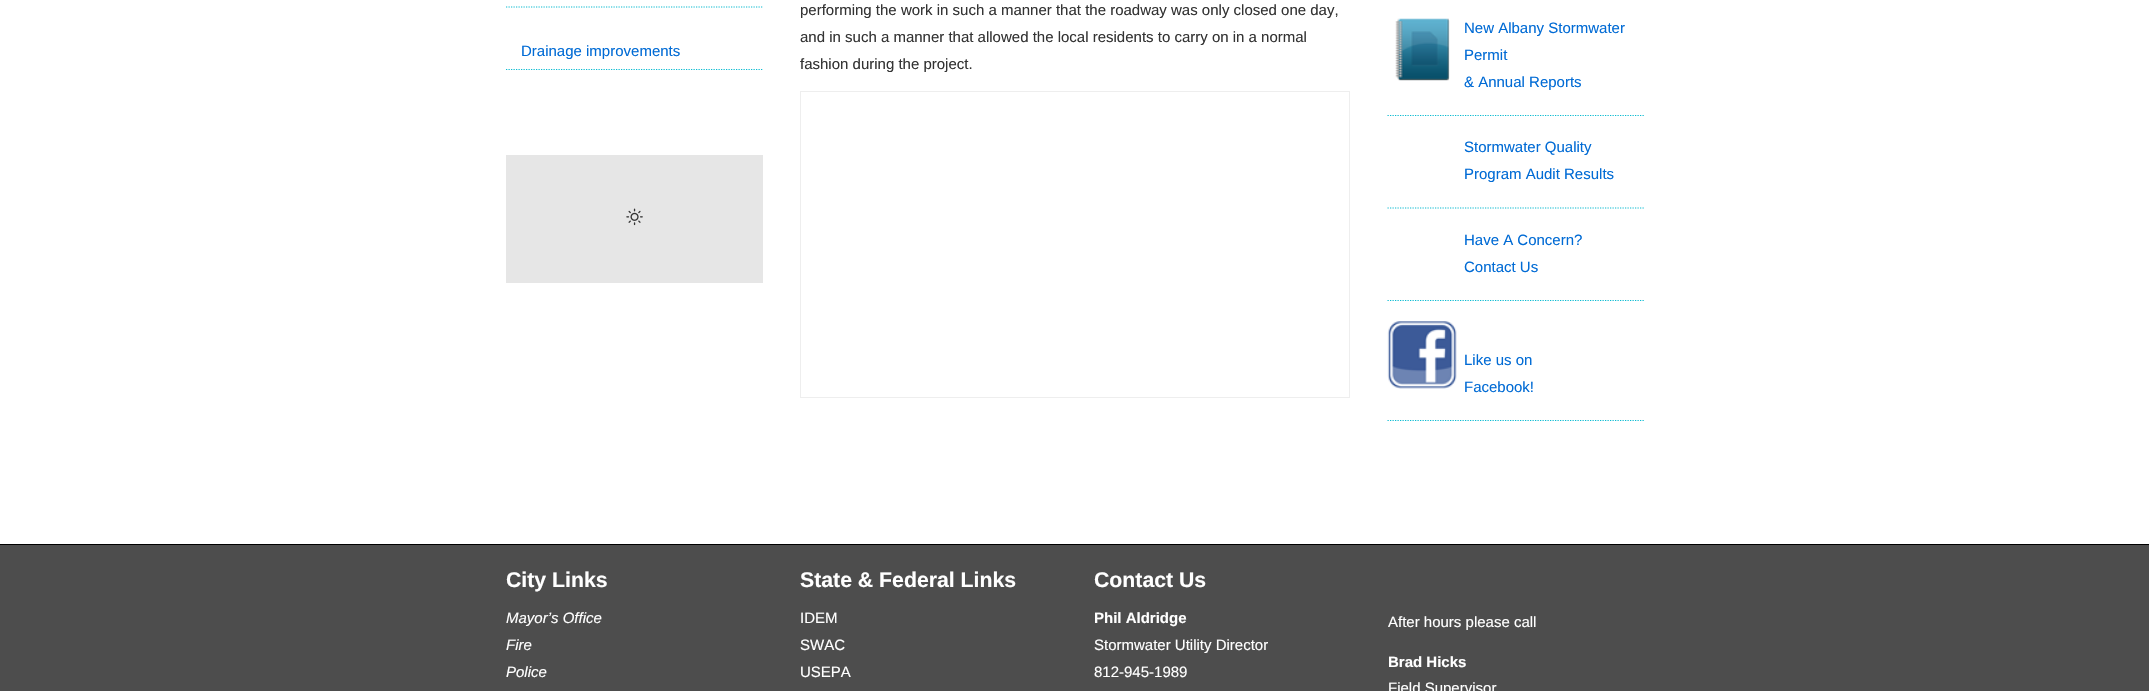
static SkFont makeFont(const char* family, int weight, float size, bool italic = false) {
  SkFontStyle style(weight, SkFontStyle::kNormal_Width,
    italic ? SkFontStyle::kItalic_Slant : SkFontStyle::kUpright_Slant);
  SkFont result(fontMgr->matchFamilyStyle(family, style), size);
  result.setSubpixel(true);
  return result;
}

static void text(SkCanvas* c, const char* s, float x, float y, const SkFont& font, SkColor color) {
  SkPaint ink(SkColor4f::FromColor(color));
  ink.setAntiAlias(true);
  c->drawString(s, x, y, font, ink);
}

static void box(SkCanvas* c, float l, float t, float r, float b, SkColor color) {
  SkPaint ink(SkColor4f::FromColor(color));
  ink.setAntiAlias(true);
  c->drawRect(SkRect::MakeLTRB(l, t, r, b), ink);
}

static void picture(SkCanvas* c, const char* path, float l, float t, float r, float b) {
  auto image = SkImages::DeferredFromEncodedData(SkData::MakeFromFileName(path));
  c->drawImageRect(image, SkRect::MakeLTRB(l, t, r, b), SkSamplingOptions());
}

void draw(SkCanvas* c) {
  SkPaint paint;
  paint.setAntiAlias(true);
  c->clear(0xffffffff);
  paint.setStyle(SkPaint::kStroke_Style);
  paint.setStrokeWidth(1.2f);
  paint.setColor(0xff0abbd2);
  paint.setPathEffect(SkDashPathEffect::Make({{1.25f, 1.25f}}, 0));
  c->drawPath(SkPathBuilder().moveTo(506, 7).lineTo(762.5f, 7).detach(), paint);
  paint.setPathEffect(nullptr);
  paint.setPathEffect(SkDashPathEffect::Make({{1.25f, 1.25f}}, 0));
  c->drawPath(SkPathBuilder().moveTo(506, 69.5f).lineTo(762.5f, 69.5f).detach(), paint);
  paint.setPathEffect(nullptr);
  SkFont face1 = makeFont("Liberation Sans", 400, 15);
  text(c, "Drainage improvements", 521, 56, face1, 0xff016bd5);
  box(c, 506, 155, 763, 283, 0xffe6e6e6);
  picture(c, "img_01.png", 626, 208, 643, 226);
  text(c, "performing the work in such a manner that the roadway was only closed one day,", 800, 15, face1, 0xff333333);
  text(c, "and in such a manner that allowed the local residents to carry on in a normal", 800, 42, face1, 0xff333333);
  text(c, "fashion during the project.", 800, 69, face1, 0xff333333);
  paint.setStrokeWidth(1);
  paint.setColor(0xffeeeeee);
  c->drawRect(SkRect::MakeLTRB(800.5f, 91.5f, 1349.5f, 397.5f), paint);
  paint.setStrokeWidth(1.2f);
  paint.setColor(0xff0abbd2);
  paint.setPathEffect(SkDashPathEffect::Make({{1.25f, 1.25f}}, 0));
  c->drawPath(SkPathBuilder().moveTo(1387.5f, 115.5f).lineTo(1644, 115.5f).detach(), paint);
  paint.setPathEffect(nullptr);
  picture(c, "img_02.png", 1395, 18, 1450, 81);
  text(c, "New Albany Stormwater", 1464, 33, face1, 0xff016bd5);
  text(c, "Permit", 1464, 60, face1, 0xff016bd5);
  text(c, "& Annual Reports", 1464, 87, face1, 0xff016bd5);
  paint.setPathEffect(SkDashPathEffect::Make({{1.25f, 1.25f}}, 0));
  c->drawPath(SkPathBuilder().moveTo(1387.5f, 208).lineTo(1644, 208).detach(), paint);
  paint.setPathEffect(nullptr);
  text(c, "Stormwater Quality", 1464, 152, face1, 0xff016bd5);
  text(c, "Program Audit Results", 1464, 179, face1, 0xff016bd5);
  paint.setPathEffect(SkDashPathEffect::Make({{1.25f, 1.25f}}, 0));
  c->drawPath(SkPathBuilder().moveTo(1387.5f, 300.5f).lineTo(1644, 300.5f).detach(), paint);
  paint.setPathEffect(nullptr);
  text(c, "Have A Concern?", 1464, 245, face1, 0xff016bd5);
  text(c, "Contact Us", 1464, 272, face1, 0xff016bd5);
  paint.setPathEffect(SkDashPathEffect::Make({{1.25f, 1.25f}}, 0));
  c->drawPath(SkPathBuilder().moveTo(1387.5f, 420.5f).lineTo(1644, 420.5f).detach(), paint);
  paint.setPathEffect(nullptr);
  picture(c, "img_03.png", 1387, 321, 1457, 389);
  text(c, "Like us on", 1464, 365, face1, 0xff016bd5);
  text(c, "Facebook!", 1464, 392, face1, 0xff016bd5);
  box(c, 0, 545, 2149, 691, 0xff4d4d4d);
  box(c, 0, 544, 2149, 545, 0xff000000);
  SkFont face2 = makeFont("Liberation Sans", 700, 21.25f);
  text(c, "City Links", 506, 587, face2, 0xffffffff);
  SkFont face3 = makeFont("Liberation Sans", 400, 15, true);
  text(c, "Mayor’s Office", 506, 623, face3, 0xffffffff);
  text(c, "Fire", 506, 650, face3, 0xffffffff);
  text(c, "Police", 506, 677, face3, 0xffffffff);
  text(c, "State & Federal Links", 800, 587, face2, 0xffffffff);
  text(c, "IDEM", 800, 623, face1, 0xffffffff);
  text(c, "SWAC", 800, 650, face1, 0xffffffff);
  text(c, "USEPA", 800, 677, face1, 0xffffffff);
  text(c, "Contact Us", 1094, 587, face2, 0xffffffff);
  SkFont face4 = makeFont("Liberation Sans", 700, 15);
  text(c, "Phil Aldridge", 1094, 623, face4, 0xffffffff);
  text(c, "Stormwater Utility Director", 1094, 650, face1, 0xffffffff);
  text(c, "812-945-1989", 1094, 677, face1, 0xffffffff);
  text(c, "After hours please call", 1388, 627, face1, 0xffffffff);
  text(c, "Brad Hicks", 1388, 667, face4, 0xffffffff);
  text(c, "Field Supervisor", 1388, 693, face1, 0xffffffff);
}
